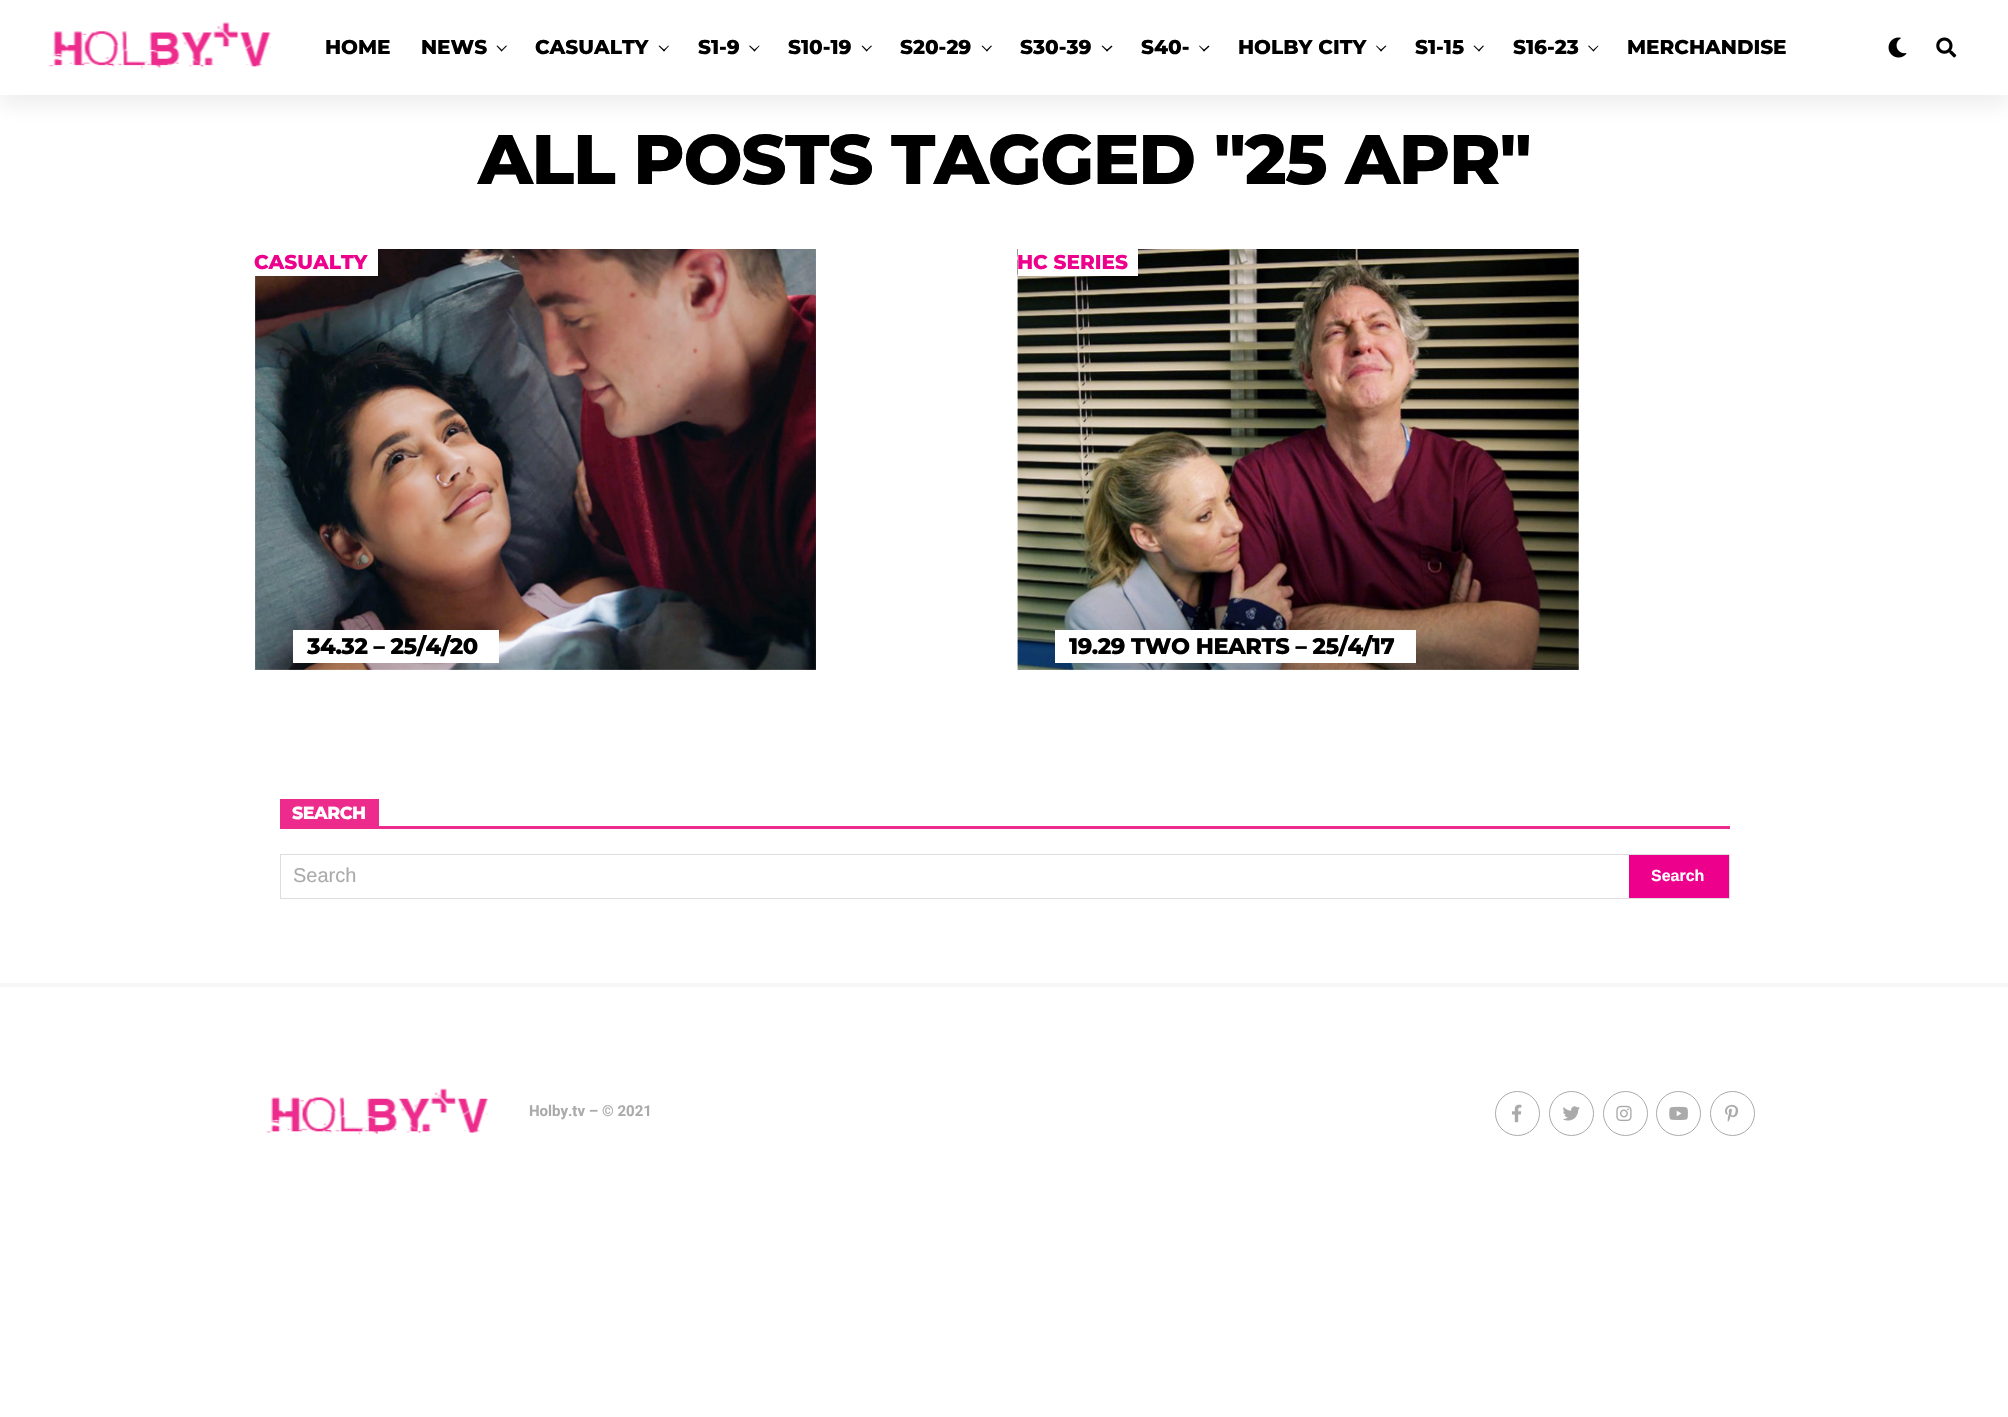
static SkFont makeFont(const char* family, int weight, float size, bool italic = false) {
  SkFontStyle style(weight, SkFontStyle::kNormal_Width,
    italic ? SkFontStyle::kItalic_Slant : SkFontStyle::kUpright_Slant);
  SkFont result(fontMgr->matchFamilyStyle(family, style), size);
  result.setSubpixel(true);
  return result;
}

static void text(SkCanvas* c, const char* s, float x, float y, const SkFont& font, SkColor color) {
  SkPaint ink(SkColor4f::FromColor(color));
  ink.setAntiAlias(true);
  c->drawString(s, x, y, font, ink);
}

static void spacedText(SkCanvas* c, const char* s, float x, float y, const SkFont& font, const SkPaint& ink, float letter, float word) {
  std::vector<SkGlyphID> glyphs(font.countText(s, strlen(s), SkTextEncoding::kUTF8));
  std::vector<float> xs(glyphs.size());
  font.textToGlyphs(s, strlen(s), SkTextEncoding::kUTF8, glyphs);
  font.getXPos(glyphs, xs, x);
  float extra = 0;
  for (size_t i = 0; i < glyphs.size(); i++) {
    xs[i] += extra;
    extra += letter + word * (glyphs[i] == font.unicharToGlyph(' '));
  }
  c->drawTextBlob(SkTextBlob::MakeFromPosHGlyphs(glyphs, xs, y, font), 0, 0, ink);
}

static void box(SkCanvas* c, float l, float t, float r, float b, SkColor color) {
  SkPaint ink(SkColor4f::FromColor(color));
  ink.setAntiAlias(true);
  c->drawRect(SkRect::MakeLTRB(l, t, r, b), ink);
}

static void picture(SkCanvas* c, const char* path, float l, float t, float r, float b) {
  auto image = SkImages::DeferredFromEncodedData(SkData::MakeFromFileName(path));
  c->drawImageRect(image, SkRect::MakeLTRB(l, t, r, b), SkSamplingOptions());
}

void draw(SkCanvas* c) {
  SkPaint paint;
  paint.setAntiAlias(true);
  c->clear(0xffffffff);
  paint.setColor(0x1415151e);
  paint.setMaskFilter(SkMaskFilter::MakeBlur(kNormal_SkBlurStyle, 10));
  c->drawRect(SkRect::MakeLTRB(0, 10, 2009, 105), paint);
  paint.setMaskFilter(nullptr);
  box(c, 0, 0, 2008, 95, 0xffffffff);
  picture(c, "img_01.png", 48, 22, 271, 69);
  SkFont face1 = makeFont("Montserrat", 800, 20);
  text(c, "HOME", 325, 54, face1, 0xff000000);
  text(c, "NEWS", 421, 54, face1, 0xff000000);
  paint.setColor(0xff000000);
  c->drawPath(SkPathBuilder().moveTo(506, 45.5f).lineTo(507, 46).lineTo(501.5f, 51.5f).lineTo(501, 50.5f).close().detach(), paint);
  c->drawPath(SkPathBuilder().moveTo(497.5f, 45.5f).lineTo(502.5f, 50.5f).lineTo(501.5f, 51.5f).lineTo(496.5f, 46).close().detach(), paint);
  text(c, "CASUALTY", 535, 54, face1, 0xff000000);
  c->drawPath(SkPathBuilder().moveTo(668.5f, 45.5f).lineTo(669, 46).lineTo(664, 51.5f).lineTo(663, 50.5f).close().detach(), paint);
  c->drawPath(SkPathBuilder().moveTo(659.5f, 45.5f).lineTo(665, 50.5f).lineTo(664, 51.5f).lineTo(658.5f, 46).close().detach(), paint);
  text(c, "S1-9", 698, 54, face1, 0xff000000);
  c->drawPath(SkPathBuilder().moveTo(759, 45.5f).lineTo(759.5f, 46).lineTo(754.5f, 51.5f).lineTo(753.5f, 50.5f).close().detach(), paint);
  c->drawPath(SkPathBuilder().moveTo(750, 45.5f).lineTo(755.5f, 50.5f).lineTo(754.5f, 51.5f).lineTo(749, 46).close().detach(), paint);
  text(c, "S10-19", 788, 54, face1, 0xff000000);
  c->drawPath(SkPathBuilder().moveTo(871, 45.5f).lineTo(872, 46).lineTo(866.5f, 51.5f).lineTo(866, 50.5f).close().detach(), paint);
  c->drawPath(SkPathBuilder().moveTo(862.5f, 45.5f).lineTo(867.5f, 50.5f).lineTo(866.5f, 51.5f).lineTo(861.5f, 46).close().detach(), paint);
  text(c, "S20-29", 900, 54, face1, 0xff000000);
  c->drawPath(SkPathBuilder().moveTo(991, 45.5f).lineTo(992, 46).lineTo(987, 51.5f).lineTo(986, 50.5f).close().detach(), paint);
  c->drawPath(SkPathBuilder().moveTo(982.5f, 45.5f).lineTo(987.5f, 50.5f).lineTo(987, 51.5f).lineTo(981.5f, 46).close().detach(), paint);
  text(c, "S30-39", 1020, 54, face1, 0xff000000);
  c->drawPath(SkPathBuilder().moveTo(1111.5f, 45.5f).lineTo(1112.5f, 46.5f).lineTo(1107, 51.5f).lineTo(1106, 50.5f).close().detach(), paint);
  c->drawPath(SkPathBuilder().moveTo(1102.5f, 45.5f).lineTo(1108, 50.5f).lineTo(1107, 51.5f).lineTo(1101.5f, 46).close().detach(), paint);
  text(c, "S40-", 1141, 54, face1, 0xff000000);
  c->drawPath(SkPathBuilder().moveTo(1208.5f, 45.5f).lineTo(1209.5f, 46.5f).lineTo(1204, 51.5f).lineTo(1203, 50.5f).close().detach(), paint);
  c->drawPath(SkPathBuilder().moveTo(1199.5f, 45.5f).lineTo(1205, 50.5f).lineTo(1204, 51.5f).lineTo(1199, 46).close().detach(), paint);
  text(c, "HOLBY CITY", 1238, 54, face1, 0xff000000);
  c->drawPath(SkPathBuilder().moveTo(1385.5f, 45.5f).lineTo(1386.5f, 46).lineTo(1381, 51.5f).lineTo(1380, 50.5f).close().detach(), paint);
  c->drawPath(SkPathBuilder().moveTo(1376.5f, 45.5f).lineTo(1382, 50.5f).lineTo(1381, 51.5f).lineTo(1376, 46).close().detach(), paint);
  text(c, "S1-15", 1415, 54, face1, 0xff000000);
  c->drawPath(SkPathBuilder().moveTo(1483, 45.5f).lineTo(1484, 46).lineTo(1479, 51.5f).lineTo(1478, 50.5f).close().detach(), paint);
  c->drawPath(SkPathBuilder().moveTo(1474.5f, 45.5f).lineTo(1479.5f, 50.5f).lineTo(1479, 51.5f).lineTo(1473.5f, 46).close().detach(), paint);
  text(c, "S16-23", 1513, 54, face1, 0xff000000);
  c->drawPath(SkPathBuilder().moveTo(1598, 45.5f).lineTo(1598.5f, 46).lineTo(1593.5f, 51.5f).lineTo(1592.5f, 50.5f).close().detach(), paint);
  c->drawPath(SkPathBuilder().moveTo(1589, 45.5f).lineTo(1594, 50.5f).lineTo(1593.5f, 51.5f).lineTo(1588, 46).close().detach(), paint);
  text(c, "MERCHANDISE", 1627, 54, face1, 0xff000000);
  picture(c, "img_02.png", 1888, 37, 1907, 58);
  picture(c, "img_03.png", 1936, 37, 1957, 58);
  SkFont face2 = makeFont("Montserrat", 800, 70);
  spacedText(c, "ALL POSTS TAGGED \"25 APR\"", 478, 184, face2, paint, -1.4f, 0);
  picture(c, "img_04.png", 255, 249, 816, 670);
  box(c, 255, 249, 378, 276, 0xffffffff);
  text(c, "CASUALTY", 254, 269, face1, 0xffec008c);
  paint.setColor(0xffffffff);
  c->drawPath(SkPathBuilder().moveTo(293, 630).lineTo(293, 663).lineTo(468, 663).lineTo(468, 662).lineTo(305, 662).lineTo(305, 630).close().detach(), paint);
  c->drawPath(SkPathBuilder().moveTo(324, 662).lineTo(324, 663).lineTo(499, 663).lineTo(499, 630).lineTo(480, 630).lineTo(480, 662).close().detach(), paint);
  box(c, 305, 630, 480, 662, 0xffffffff);
  SkFont face3 = makeFont("Montserrat", 800, 22.5f);
  paint.setColor(0xff000000);
  spacedText(c, "34.32 – 25/4/20", 307, 654, face3, paint, -0.45f, 0);
  picture(c, "img_05.png", 1017, 249, 1579, 670);
  box(c, 1018, 249, 1138, 276, 0xffffffff);
  text(c, "HC SERIES", 1017, 269, face1, 0xffec008c);
  paint.setColor(0xffffffff);
  c->drawPath(SkPathBuilder().moveTo(1055, 630).lineTo(1055, 663).lineTo(1385, 663).lineTo(1385, 662).lineTo(1068, 662).lineTo(1068, 630).close().detach(), paint);
  c->drawPath(SkPathBuilder().moveTo(1086, 662).lineTo(1086, 663).lineTo(1416, 663).lineTo(1416, 630).lineTo(1398, 630).lineTo(1398, 662).close().detach(), paint);
  box(c, 1068, 630, 1398, 662, 0xffffffff);
  paint.setColor(0xff000000);
  spacedText(c, "19.29 TWO HEARTS – 25/4/17", 1069, 654, face3, paint, -0.45f, 0);
  box(c, 280, 826, 1730, 829, 0xffec2b8c);
  box(c, 280, 799, 379, 826, 0xffec2b8c);
  SkFont face4 = makeFont("Montserrat", 800, 17.5f);
  paint.setColor(0xffffffff);
  spacedText(c, "SEARCH", 292, 819, face4, paint, -0.5f, 0);
  paint.setStyle(SkPaint::kStroke_Style);
  paint.setStrokeWidth(1);
  paint.setColor(0xffdddddd);
  c->drawRect(SkRect::MakeLTRB(280.5f, 854.5f, 1729.5f, 898.5f), paint);
  SkFont face5 = makeFont("Liberation Sans", 400, 20);
  text(c, "Search", 293, 882, face5, 0xffaaaaaa);
  box(c, 1629, 855, 1729, 898, 0xffec008c);
  SkFont face6 = makeFont("Liberation Sans", 700, 16);
  text(c, "Search", 1651, 881, face6, 0xffffffff);
  box(c, 0, 983, 2008, 987, 0xfff7f7f7);
  picture(c, "img_06.png", 266, 1088, 488, 1135);
  SkFont face7 = makeFont("Roboto", 700, 15);
  text(c, "Holby.tv – © 2021", 529, 1116, face7, 0xffaaaaaa);
  paint.setColor(0xffaaaaaa);
  c->drawCircle(1517.5f, 1113.5f, 22, paint);
  picture(c, "img_07.png", 1512, 1104, 1522, 1123);
  c->drawCircle(1571.5f, 1113.5f, 22, paint);
  picture(c, "img_08.png", 1563, 1106, 1580, 1121);
  c->drawCircle(1625.5f, 1113.5f, 22, paint);
  picture(c, "img_09.png", 1616, 1105, 1632, 1122);
  c->drawCircle(1678.5f, 1113.5f, 22, paint);
  picture(c, "img_10.png", 1669, 1106, 1688, 1120);
  c->drawCircle(1732.5f, 1113.5f, 22, paint);
  picture(c, "img_11.png", 1725, 1104, 1739, 1122);
}
